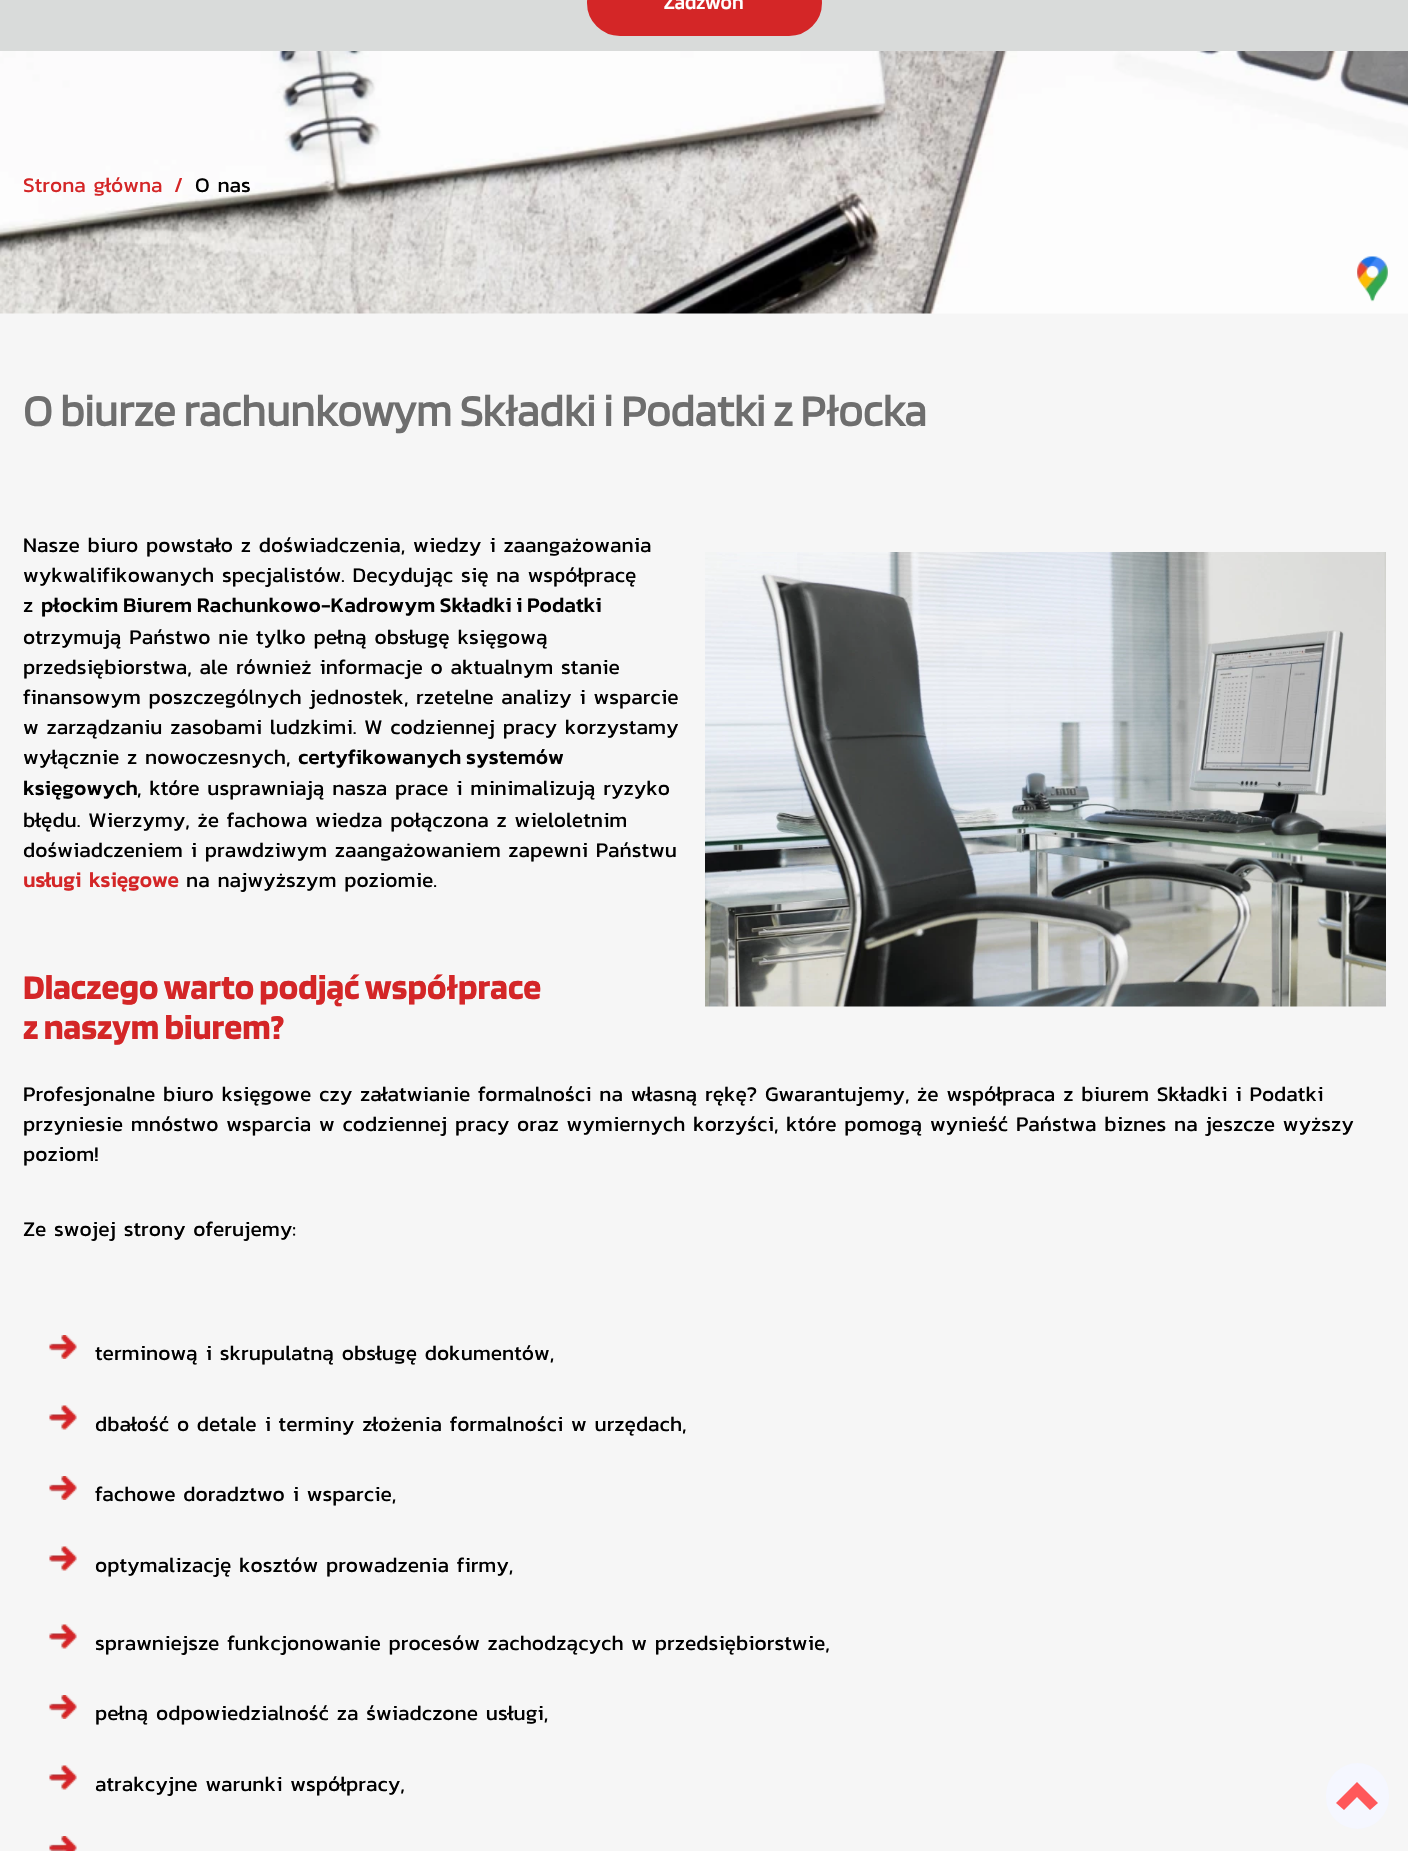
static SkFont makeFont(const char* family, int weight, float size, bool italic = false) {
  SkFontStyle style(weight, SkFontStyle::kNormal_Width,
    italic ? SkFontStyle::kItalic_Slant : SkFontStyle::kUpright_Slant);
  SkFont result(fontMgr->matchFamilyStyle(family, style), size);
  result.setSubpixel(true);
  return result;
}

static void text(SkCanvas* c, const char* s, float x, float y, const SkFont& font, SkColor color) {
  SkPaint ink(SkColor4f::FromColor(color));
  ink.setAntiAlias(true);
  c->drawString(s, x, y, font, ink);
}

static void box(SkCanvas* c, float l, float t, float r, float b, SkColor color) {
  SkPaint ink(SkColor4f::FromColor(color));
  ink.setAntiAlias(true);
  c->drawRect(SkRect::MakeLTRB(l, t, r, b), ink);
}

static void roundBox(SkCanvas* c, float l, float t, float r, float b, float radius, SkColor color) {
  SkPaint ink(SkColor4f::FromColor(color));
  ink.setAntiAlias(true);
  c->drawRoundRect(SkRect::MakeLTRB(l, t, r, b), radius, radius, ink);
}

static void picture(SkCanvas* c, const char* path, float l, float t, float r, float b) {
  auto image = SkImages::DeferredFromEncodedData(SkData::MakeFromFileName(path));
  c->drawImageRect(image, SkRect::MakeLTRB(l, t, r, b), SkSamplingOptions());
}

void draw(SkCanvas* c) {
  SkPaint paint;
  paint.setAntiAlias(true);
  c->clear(0xfff6f6f6);
  box(c, 0, 0, 1408, 51, 0xffd9dbda);
  paint.setColor(0xffd42627);
  c->drawRoundRect(SkRect::MakeLTRB(588.5f, -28.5f, 820.5f, 34.5f), 31.5f, 31.5f, paint);
  paint.setStyle(SkPaint::kStroke_Style);
  paint.setStrokeWidth(3);
  c->drawRoundRect(SkRect::MakeLTRB(588.5f, -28.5f, 820.5f, 34.5f), 31.5f, 31.5f, paint);
  SkFont face1 = makeFont("Blinker", 600, 21);
  text(c, "Zadzwoń", 664, 9, face1, 0xffffffff);
  picture(c, "img_01.png", 0, 51, 1408, 314);
  SkFont face2 = makeFont("Kanit", 400, 21);
  text(c, "Strona główna", 23, 192, face2, 0xffd42627);
  text(c, "/", 174, 192, face2, 0xffd42627);
  text(c, "O nas", 195, 192, face2, 0xff000000);
  picture(c, "img_02.png", 1357, 256, 1388, 302);
  SkFont face3 = makeFont("Blinker", 700, 45);
  text(c, "O biurze rachunkowym Składki i Podatki z Płocka", 23, 426, face3, 0xff6e6e6e);
  text(c, "Nasze biuro powstało z doświadczenia, wiedzy i zaangażowania", 23, 552, face2, 0xff000000);
  text(c, "wykwalifikowanych specjalistów. Decydując się na współpracę", 23, 582, face2, 0xff000000);
  picture(c, "img_03.png", 705, 552, 1386, 1007);
  text(c, "z", 23, 612, face2, 0xff000000);
  SkFont face4 = makeFont("Kanit", 500, 21);
  text(c, "płockim Biurem Rachunkowo-Kadrowym Składki i Podatki", 41, 612, face4, 0xff000000);
  text(c, "otrzymują Państwo nie tylko pełną obsługę księgową", 23, 644, face2, 0xff000000);
  text(c, "przedsiębiorstwa, ale również informacje o aktualnym stanie", 23, 674, face2, 0xff000000);
  text(c, "finansowym poszczególnych jednostek, rzetelne analizy i wsparcie", 23, 704, face2, 0xff000000);
  text(c, "w zarządzaniu zasobami ludzkimi. W codziennej pracy korzystamy", 23, 734, face2, 0xff000000);
  text(c, "wyłącznie z nowoczesnych,", 23, 764, face2, 0xff000000);
  text(c, "certyfikowanych systemów", 298, 764, face4, 0xff000000);
  text(c, "księgowych", 23, 795, face4, 0xff000000);
  text(c, ", które usprawniają nasza prace i minimalizują ryzyko", 137, 795, face2, 0xff000000);
  text(c, "błędu. Wierzymy, że fachowa wiedza połączona z wieloletnim", 23, 827, face2, 0xff000000);
  text(c, "doświadczeniem i prawdziwym zaangażowaniem zapewni Państwu", 23, 857, face2, 0xff000000);
  SkFont face5 = makeFont("Kanit", 700, 21);
  text(c, "usługi księgowe", 23, 887, face5, 0xffd42627);
  text(c, "na najwyższym poziomie.", 186, 887, face2, 0xff000000);
  SkFont face6 = makeFont("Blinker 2", 700, 36);
  text(c, "Dlaczego warto podjąć współprace", 23, 999, face6, 0xffd42627);
  text(c, "z naszym biurem?", 23, 1039, face6, 0xffd42627);
  text(c, "Profesjonalne biuro księgowe czy załatwianie formalności na własną rękę? Gwarantujemy, że współpraca z biurem Składki i Podatki", 23, 1101, face2, 0xff000000);
  text(c, "przyniesie mnóstwo wsparcia w codziennej pracy oraz wymiernych korzyści, które pomogą wynieść Państwa biznes na jeszcze wyższy", 23, 1131, face2, 0xff000000);
  text(c, "poziom!", 23, 1161, face2, 0xff000000);
  text(c, "Ze swojej strony oferujemy:", 23, 1236, face2, 0xff000000);
  picture(c, "img_04.png", 49, 1335, 77, 1359);
  text(c, "terminową i skrupulatną obsługę dokumentów,", 95, 1360, face2, 0xff000000);
  picture(c, "img_05.png", 49, 1405, 77, 1430);
  text(c, "dbałość o detale i terminy złożenia formalności w urzędach,", 95, 1431, face2, 0xff000000);
  picture(c, "img_04.png", 49, 1476, 77, 1500);
  text(c, "fachowe doradztwo i wsparcie,", 95, 1501, face2, 0xff000000);
  picture(c, "img_05.png", 49, 1546, 77, 1571);
  text(c, "optymalizację kosztów prowadzenia firmy,", 95, 1572, face2, 0xff000000);
  picture(c, "img_05.png", 49, 1624, 77, 1649);
  text(c, "sprawniejsze funkcjonowanie procesów zachodzących w przedsiębiorstwie,", 95, 1650, face2, 0xff000000);
  picture(c, "img_04.png", 49, 1695, 77, 1719);
  text(c, "pełną odpowiedzialność za świadczone usługi,", 95, 1720, face2, 0xff000000);
  picture(c, "img_05.png", 49, 1765, 77, 1790);
  text(c, "atrakcyjne warunki współpracy,", 95, 1791, face2, 0xff000000);
  picture(c, "img_06.png", 49, 1836, 77, 1851);
  roundBox(c, 1326, 1763, 1389, 1829, 31.5f, 0xfff5f7ff);
  paint.setStyle(SkPaint::kFill_Style);
  paint.setColor(0xffff585a);
  c->drawPath(SkPathBuilder().moveTo(1378, 1803).lineTo(1370, 1810).lineTo(1357, 1797).lineTo(1344, 1810).lineTo(1336, 1803).lineTo(1357, 1782).close().detach(), paint);
}
